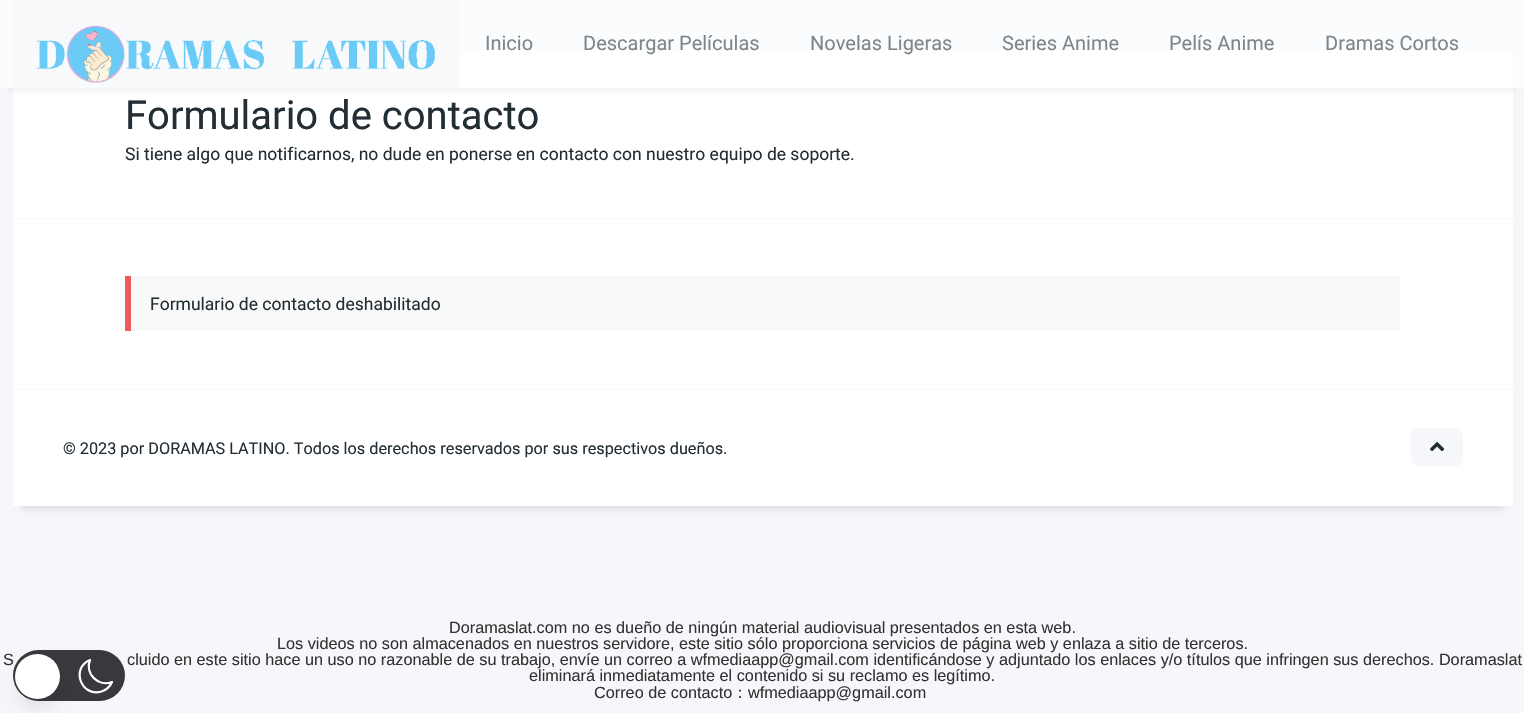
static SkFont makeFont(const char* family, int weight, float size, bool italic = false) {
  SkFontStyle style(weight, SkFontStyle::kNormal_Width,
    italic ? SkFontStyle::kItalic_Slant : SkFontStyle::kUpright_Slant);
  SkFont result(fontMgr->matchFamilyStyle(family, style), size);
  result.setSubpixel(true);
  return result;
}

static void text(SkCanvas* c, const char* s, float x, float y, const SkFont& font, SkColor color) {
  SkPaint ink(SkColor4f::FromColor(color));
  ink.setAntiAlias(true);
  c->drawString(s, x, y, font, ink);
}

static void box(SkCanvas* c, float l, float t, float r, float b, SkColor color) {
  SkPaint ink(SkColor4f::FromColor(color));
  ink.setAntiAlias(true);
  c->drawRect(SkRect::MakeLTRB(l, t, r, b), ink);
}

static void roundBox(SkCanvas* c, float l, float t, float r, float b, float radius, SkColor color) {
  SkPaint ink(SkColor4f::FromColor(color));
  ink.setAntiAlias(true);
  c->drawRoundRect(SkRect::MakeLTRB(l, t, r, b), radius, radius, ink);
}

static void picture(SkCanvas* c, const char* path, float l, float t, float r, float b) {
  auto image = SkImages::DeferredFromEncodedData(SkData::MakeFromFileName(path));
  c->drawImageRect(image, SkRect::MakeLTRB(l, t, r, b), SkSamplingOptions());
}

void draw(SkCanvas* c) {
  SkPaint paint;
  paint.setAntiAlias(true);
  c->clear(0xfff5f7fa);
  box(c, 13, 50, 1513, 389, 0xffffffff);
  c->save();
  c->clipPath(SkPathBuilder(SkPathFillType::kEvenOdd).moveTo(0, 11).lineTo(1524, 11).lineTo(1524, 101).lineTo(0, 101).close().moveTo(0, 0).lineTo(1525, 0).lineTo(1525, 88).lineTo(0, 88).close().detach(), true);
  paint.setColor(0x0d000000);
  paint.setMaskFilter(SkMaskFilter::MakeBlur(kNormal_SkBlurStyle, 3));
  c->drawRect(SkRect::MakeLTRB(9, 21, 1516, 91), paint);
  paint.setMaskFilter(nullptr);
  c->restore();
  box(c, 0, 0, 1524, 88, 0x91ffffff);
  box(c, 13, 0, 460, 88, 0x91f5f7fa);
  picture(c, "img_01.png", 36, 25, 435, 83);
  SkFont face1 = makeFont("Roboto", 400, 20);
  text(c, "Inicio", 485, 50, face1, 0xff7f868a);
  text(c, "Descargar Películas", 583, 50, face1, 0xff7f868a);
  text(c, "Novelas Ligeras", 810, 50, face1, 0xff7f868a);
  text(c, "Series Anime", 1002, 50, face1, 0xff7f868a);
  text(c, "Pelís Anime", 1169, 50, face1, 0xff7f868a);
  text(c, "Dramas Cortos", 1325, 50, face1, 0xff7f868a);
  box(c, 13, 218, 1513, 219, 0xfff5f7fa);
  SkFont face2 = makeFont("Roboto", 400, 40);
  text(c, "Formulario de contacto", 125, 129, face2, 0xff222d34);
  SkFont face3 = makeFont("Roboto", 400, 17.5f);
  text(c, "Si tiene algo que notificarnos, no dude en ponerse en contacto con nuestro equipo de soporte.", 125, 160, face3, 0xff222d34);
  box(c, 131, 276, 1400, 331, 0xfff9f9f9);
  box(c, 125, 276, 131, 331, 0xffef5b5b);
  text(c, "Formulario de contacto deshabilitado", 150, 310, face3, 0xff222d34);
  paint.setColor(0x17000000);
  paint.setMaskFilter(SkMaskFilter::MakeBlur(kNormal_SkBlurStyle, 3));
  c->drawRect(SkRect::MakeLTRB(21, 411, 1504, 510), paint);
  paint.setMaskFilter(nullptr);
  box(c, 13, 390, 1513, 506, 0xffffffff);
  SkFont face4 = makeFont("Roboto", 400, 16.25f);
  text(c, "© 2023 por DORAMAS LATINO. Todos los derechos reservados por sus respectivos dueños.", 63, 454, face4, 0xff222d34);
  roundBox(c, 1411, 428, 1463, 466, 8, 0xfff5f7fa);
  picture(c, "img_02.png", 1430, 442, 1445, 452);
  SkFont face5 = makeFont("Liberation Sans", 400, 16.25f);
  text(c, "S", 3, 665, face5, 0xff333333);
  roundBox(c, 13, 650, 125, 701, 25.5f, 0xff39393d);
  paint.setStyle(SkPaint::kStroke_Style);
  paint.setStrokeWidth(2.2f);
  paint.setStrokeCap(SkPaint::kRound_Cap);
  paint.setStrokeJoin(SkPaint::kRound_Join);
  paint.setColor(0xffffffff);
  c->drawPath(SkPathBuilder().moveTo(112, 682).cubicTo(98.5f, 687.5f, 84.5f, 673.5f, 90, 660).cubicTo(70.5f, 668, 81, 697.5f, 101.5f, 691.5f).cubicTo(106, 690, 110, 686.5f, 112, 682).close().detach(), paint);
  paint.setStyle(SkPaint::kFill_Style);
  paint.setColor(0x1a000000);
  paint.setMaskFilter(SkMaskFilter::MakeBlur(kNormal_SkBlurStyle, 9.5f));
  c->drawRoundRect(SkRect::MakeLTRB(19, 670, 56, 708), 18.5f, 18.5f, paint);
  paint.setMaskFilter(nullptr);
  paint.setColor(0xffffffff);
  c->drawCircle(37.5f, 676.5f, 22.5f, paint);
  text(c, "Doramaslat.com no es dueño de ningún material audiovisual presentados en esta web.", 449, 633, face5, 0xff333333);
  text(c, "Los videos no son almacenados en nuestros servidore, este sitio sólo proporciona servicios de página web y enlaza a sitio de terceros.", 277, 649, face5, 0xff333333);
  text(c, "cluido en este sitio hace un uso no razonable de su trabajo, envíe un correo a wfmediaapp@gmail.com identificándose y adjuntado los enlaces y/o títulos que infringen sus derechos. Doramaslat", 127, 665, face5, 0xff333333);
  text(c, "eliminará inmediatamente el contenido si su reclamo es legítimo.", 529, 681, face5, 0xff333333);
  text(c, "Correo de contacto", 594, 698, face5, 0xff333333);
  SkFont face6 = makeFont("WenQuanYi Zen Hei", 500, 16.25f);
  text(c, "：", 732, 698, face6, 0xff333333);
  text(c, "wfmediaapp@gmail.com", 748, 698, face5, 0xff333333);
}
